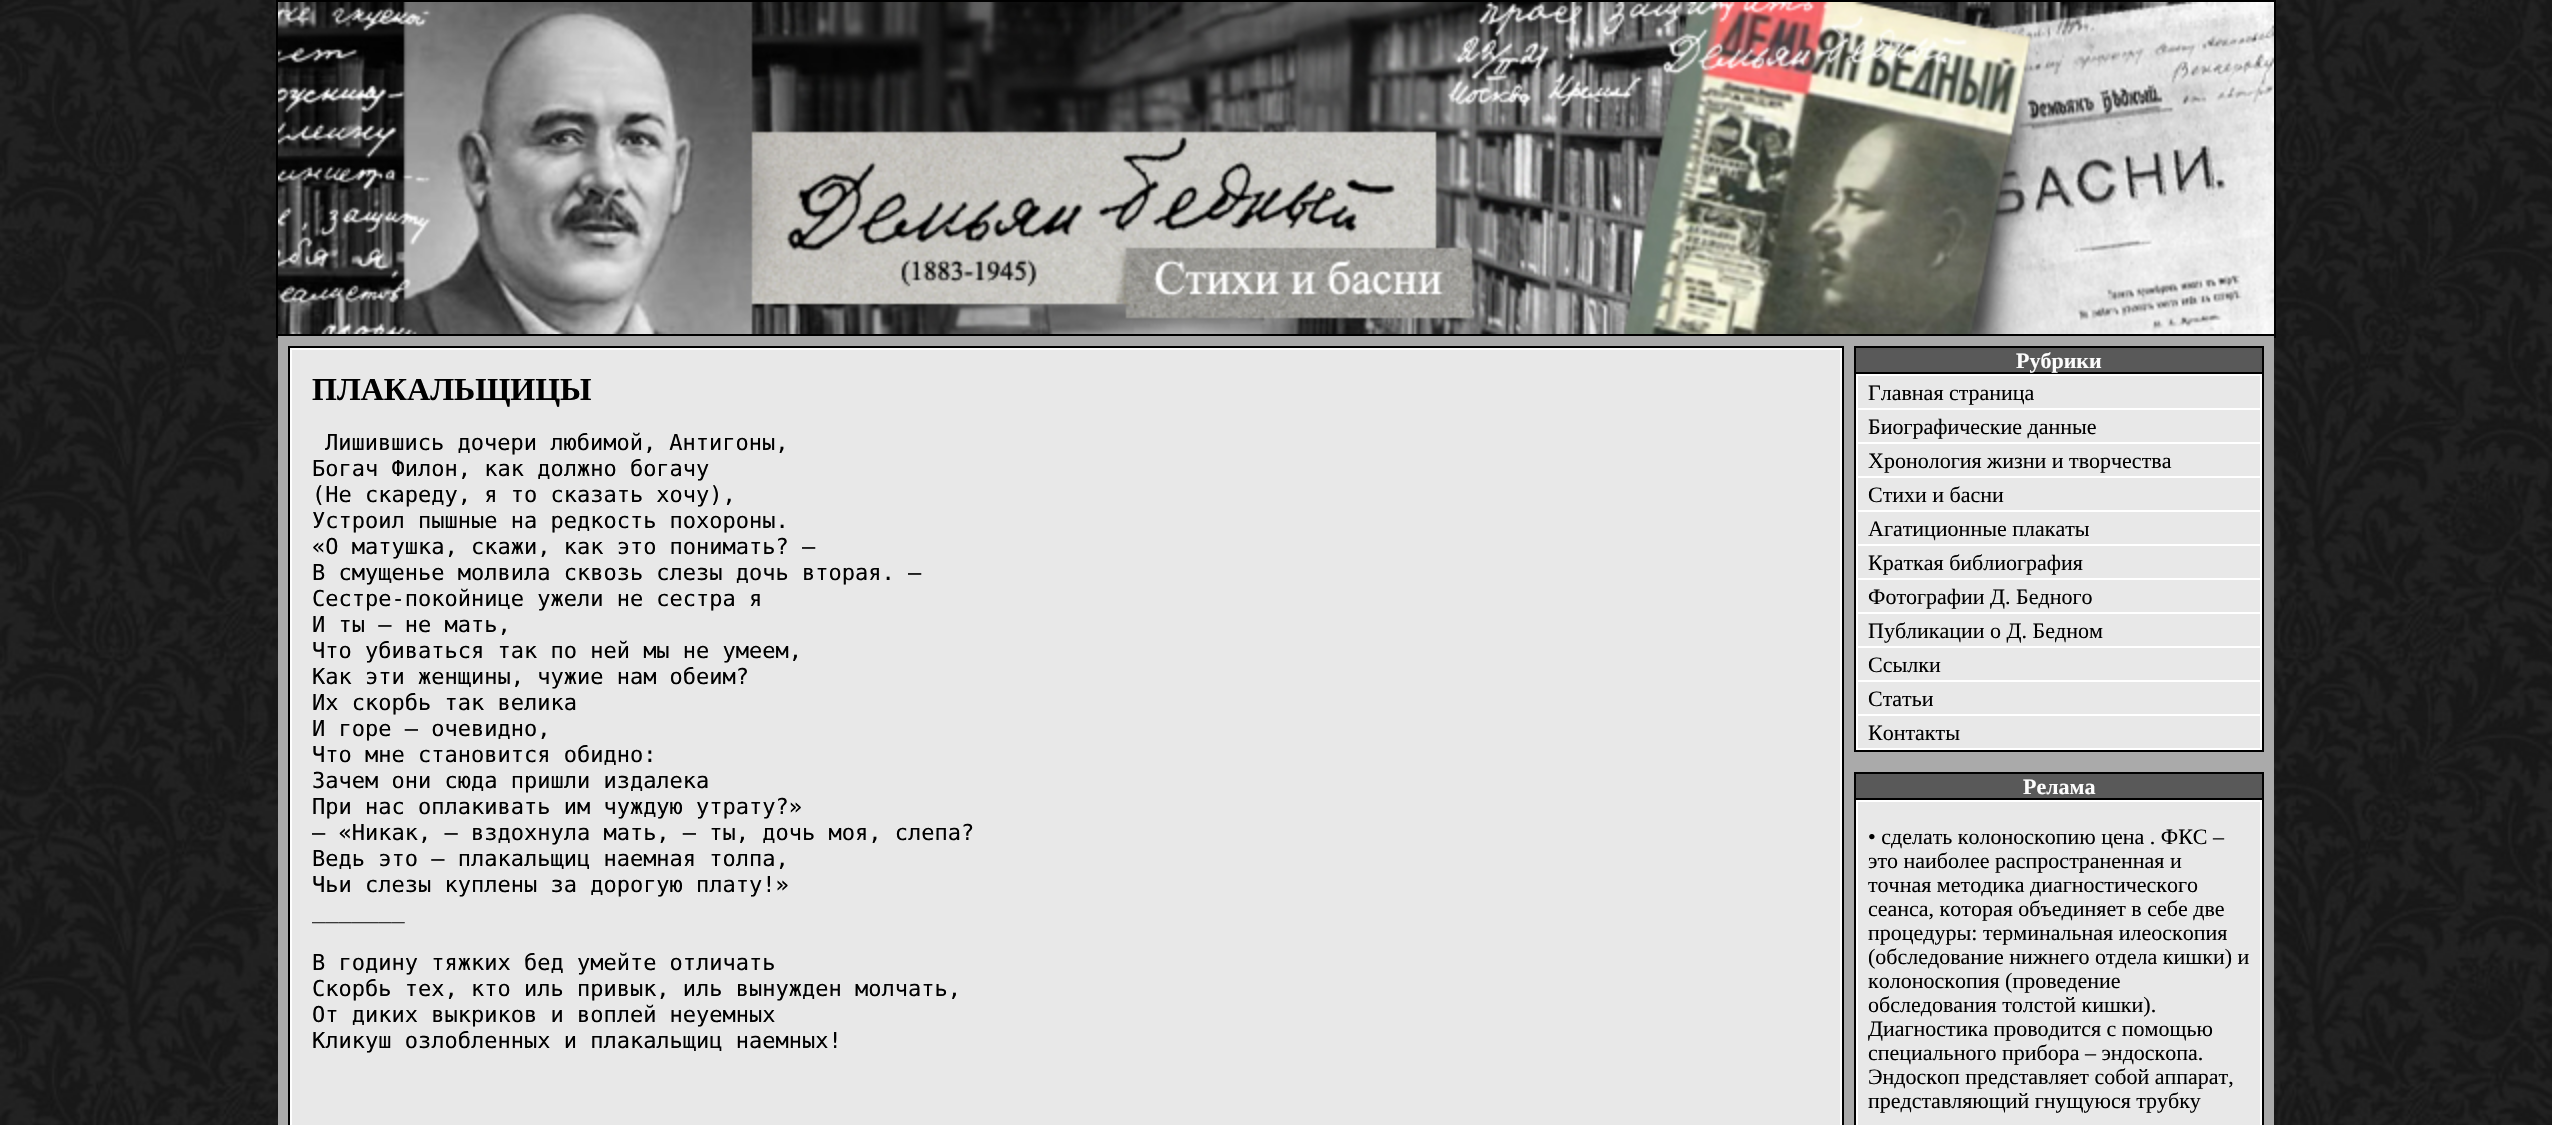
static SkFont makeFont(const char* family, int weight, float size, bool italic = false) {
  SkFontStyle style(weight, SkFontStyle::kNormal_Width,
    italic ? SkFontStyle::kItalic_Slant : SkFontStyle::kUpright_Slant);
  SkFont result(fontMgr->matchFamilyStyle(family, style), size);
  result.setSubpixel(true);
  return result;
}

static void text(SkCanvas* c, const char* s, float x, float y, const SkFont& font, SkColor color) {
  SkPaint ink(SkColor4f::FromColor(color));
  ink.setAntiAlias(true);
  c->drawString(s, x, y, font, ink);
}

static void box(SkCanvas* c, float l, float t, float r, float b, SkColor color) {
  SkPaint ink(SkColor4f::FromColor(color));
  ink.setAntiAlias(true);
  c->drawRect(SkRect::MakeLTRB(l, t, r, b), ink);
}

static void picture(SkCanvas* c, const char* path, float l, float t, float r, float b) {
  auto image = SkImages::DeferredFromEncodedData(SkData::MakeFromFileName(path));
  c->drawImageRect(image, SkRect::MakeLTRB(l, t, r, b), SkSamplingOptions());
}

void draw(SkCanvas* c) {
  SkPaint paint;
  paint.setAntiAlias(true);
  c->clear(0xffffffff);
  picture(c, "img_01.png", 0, 0, 2552, 1125);
  paint.setStyle(SkPaint::kStroke_Style);
  paint.setStrokeWidth(2);
  paint.setColor(0xff000000);
  c->drawRect(SkRect::MakeLTRB(277, 1, 2275, 337), paint);
  picture(c, "img_02.png", 278, 2, 2274, 334);
  box(c, 278, 334, 2274, 336, 0xff000000);
  box(c, 278, 336, 2274, 1125, 0xffaaaaaa);
  box(c, 292, 350, 1840, 1125, 0xffe8e8e8);
  c->drawRect(SkRect::MakeLTRB(289, 347, 1843, 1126), paint);
  paint.setColor(0xffffffff);
  c->drawRect(SkRect::MakeLTRB(291, 349, 1841, 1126), paint);
  SkFont face1 = makeFont("Liberation Serif", 700, 32);
  text(c, "ПЛАКАЛЬЩИЦЫ", 312, 400, face1, 0xff000000);
  SkFont face2 = makeFont("DejaVu Sans Mono", 400, 22);
  text(c, "Лишившись дочери любимой, Антигоны,", 325, 450, face2, 0xff000000);
  text(c, "Богач Филон, как должно богачу", 312, 476, face2, 0xff000000);
  text(c, "(Не скареду, я то сказать хочу),", 312, 502, face2, 0xff000000);
  text(c, "Устроил пышные на редкость похороны.", 312, 528, face2, 0xff000000);
  text(c, "«О матушка, скажи, как это понимать? —", 312, 554, face2, 0xff000000);
  text(c, "В смущенье молвила сквозь слезы дочь вторая. —", 312, 580, face2, 0xff000000);
  text(c, "Сестре-покойнице ужели не сестра я", 312, 606, face2, 0xff000000);
  text(c, "И ты — не мать,", 312, 632, face2, 0xff000000);
  text(c, "Что убиваться так по ней мы не умеем,", 312, 658, face2, 0xff000000);
  text(c, "Как эти женщины, чужие нам обеим?", 312, 684, face2, 0xff000000);
  text(c, "Их скорбь так велика", 312, 710, face2, 0xff000000);
  text(c, "И горе — очевидно,", 312, 736, face2, 0xff000000);
  text(c, "Что мне становится обидно:", 312, 762, face2, 0xff000000);
  text(c, "Зачем они сюда пришли издалека", 312, 788, face2, 0xff000000);
  text(c, "При нас оплакивать им чуждую утрату?»", 312, 814, face2, 0xff000000);
  text(c, "— «Никак, — вздохнула мать, — ты, дочь моя, слепа?", 312, 840, face2, 0xff000000);
  text(c, "Ведь это — плакальщиц наемная толпа,", 312, 866, face2, 0xff000000);
  text(c, "Чьи слезы куплены за дорогую плату!»", 312, 892, face2, 0xff000000);
  text(c, "_______", 312, 918, face2, 0xff000000);
  text(c, "В годину тяжких бед умейте отличать", 312, 970, face2, 0xff000000);
  text(c, "Скорбь тех, кто иль привык, иль вынужден молчать,", 312, 996, face2, 0xff000000);
  text(c, "От диких выкриков и воплей неуемных", 312, 1022, face2, 0xff000000);
  text(c, "Кликуш озлобленных и плакальщиц наемных!", 312, 1048, face2, 0xff000000);
  box(c, 1858, 376, 2260, 748, 0xffe8e8e8);
  paint.setColor(0xff000000);
  c->drawRect(SkRect::MakeLTRB(1855, 347, 2263, 751), paint);
  box(c, 1856, 348, 2262, 372, 0xff595959);
  box(c, 1856, 372, 2262, 374, 0xff000000);
  SkFont face3 = makeFont("Liberation Serif", 700, 22);
  text(c, "Рубрики", 2016, 368, face3, 0xfffdfdfd);
  paint.setColor(0xffffffff);
  c->drawRect(SkRect::MakeLTRB(1857, 375, 2261, 749), paint);
  SkFont face4 = makeFont("Liberation Serif", 400, 22);
  text(c, "Главная страница", 1868, 400, face4, 0xff000000);
  box(c, 1858, 408, 2260, 410, 0xffffffff);
  text(c, "Биографические данные", 1868, 434, face4, 0xff000000);
  box(c, 1858, 442, 2260, 444, 0xffffffff);
  text(c, "Хронология жизни и творчества", 1868, 468, face4, 0xff000000);
  box(c, 1858, 476, 2260, 478, 0xffffffff);
  text(c, "Стихи и басни", 1868, 502, face4, 0xff000000);
  box(c, 1858, 510, 2260, 512, 0xffffffff);
  text(c, "Агатиционные плакаты", 1868, 536, face4, 0xff000000);
  box(c, 1858, 544, 2260, 546, 0xffffffff);
  text(c, "Краткая библиография", 1868, 570, face4, 0xff000000);
  box(c, 1858, 578, 2260, 580, 0xffffffff);
  text(c, "Фотографии Д. Бедного", 1868, 604, face4, 0xff000000);
  box(c, 1858, 612, 2260, 614, 0xffffffff);
  text(c, "Публикации о Д. Бедном", 1868, 638, face4, 0xff000000);
  box(c, 1858, 646, 2260, 648, 0xffffffff);
  text(c, "Ссылки", 1868, 672, face4, 0xff000000);
  box(c, 1858, 680, 2260, 682, 0xffffffff);
  text(c, "Статьи", 1868, 706, face4, 0xff000000);
  box(c, 1858, 714, 2260, 716, 0xffffffff);
  text(c, "Контакты", 1868, 740, face4, 0xff000000);
  box(c, 1858, 802, 2260, 1125, 0xffe8e8e8);
  paint.setColor(0xff000000);
  c->drawRect(SkRect::MakeLTRB(1855, 773, 2263, 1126), paint);
  box(c, 1856, 774, 2262, 798, 0xff595959);
  box(c, 1856, 798, 2262, 800, 0xff000000);
  text(c, "Релама", 2023, 794, face3, 0xfffdfdfd);
  paint.setColor(0xffffffff);
  c->drawRect(SkRect::MakeLTRB(1857, 801, 2261, 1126), paint);
  text(c, "• сделать колоноскопию цена . ФКС –", 1868, 844, face4, 0xff000000);
  text(c, "это наиболее распространенная и", 1868, 868, face4, 0xff000000);
  text(c, "точная методика диагностического", 1868, 892, face4, 0xff000000);
  text(c, "сеанса, которая объединяет в себе две", 1868, 916, face4, 0xff000000);
  text(c, "процедуры: терминальная илеоскопия", 1868, 940, face4, 0xff000000);
  text(c, "(обследование нижнего отдела кишки) и", 1868, 964, face4, 0xff000000);
  text(c, "колоноскопия (проведение", 1868, 988, face4, 0xff000000);
  text(c, "обследования толстой кишки).", 1868, 1012, face4, 0xff000000);
  text(c, "Диагностика проводится с помощью", 1868, 1036, face4, 0xff000000);
  text(c, "специального прибора – эндоскопа.", 1868, 1060, face4, 0xff000000);
  text(c, "Эндоскоп представляет собой аппарат,", 1868, 1084, face4, 0xff000000);
  text(c, "представляющий гнущуюся трубку", 1868, 1108, face4, 0xff000000);
}
